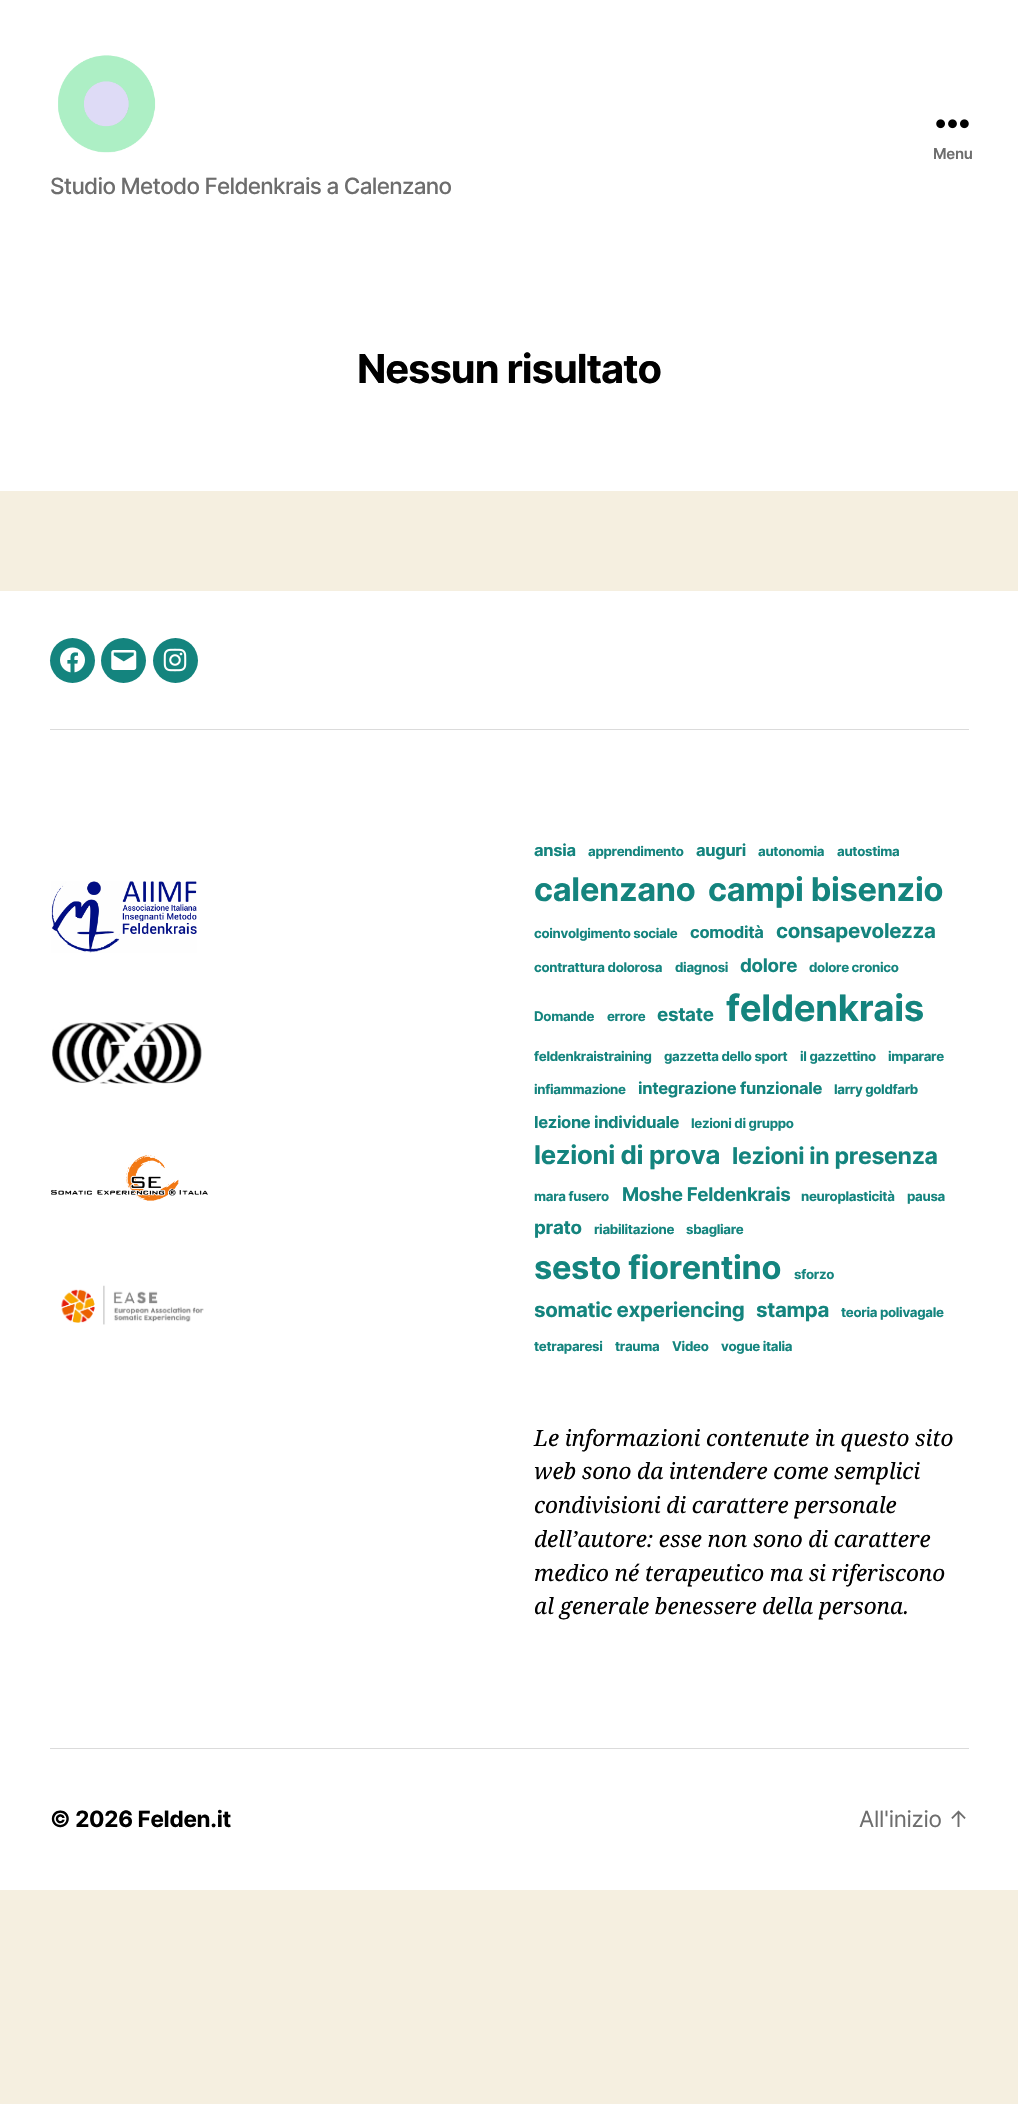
static SkFont makeFont(const char* family, int weight, float size, bool italic = false) {
  SkFontStyle style(weight, SkFontStyle::kNormal_Width,
    italic ? SkFontStyle::kItalic_Slant : SkFontStyle::kUpright_Slant);
  SkFont result(fontMgr->matchFamilyStyle(family, style), size);
  result.setSubpixel(true);
  return result;
}

static void spacedText(SkCanvas* c, const char* s, float x, float y, const SkFont& font, const SkPaint& ink, float letter, float word) {
  std::vector<SkGlyphID> glyphs(font.countText(s, strlen(s), SkTextEncoding::kUTF8));
  std::vector<float> xs(glyphs.size());
  font.textToGlyphs(s, strlen(s), SkTextEncoding::kUTF8, glyphs);
  font.getXPos(glyphs, xs, x);
  float extra = 0;
  for (size_t i = 0; i < glyphs.size(); i++) {
    xs[i] += extra;
    extra += letter + word * (glyphs[i] == font.unicharToGlyph(' '));
  }
  c->drawTextBlob(SkTextBlob::MakeFromPosHGlyphs(glyphs, xs, y, font), 0, 0, ink);
}

static void box(SkCanvas* c, float l, float t, float r, float b, SkColor color) {
  SkPaint ink(SkColor4f::FromColor(color));
  ink.setAntiAlias(true);
  c->drawRect(SkRect::MakeLTRB(l, t, r, b), ink);
}

static void picture(SkCanvas* c, const char* path, float l, float t, float r, float b) {
  auto image = SkImages::DeferredFromEncodedData(SkData::MakeFromFileName(path));
  c->drawImageRect(image, SkRect::MakeLTRB(l, t, r, b), SkSamplingOptions());
}

void draw(SkCanvas* c) {
  SkPaint paint;
  paint.setAntiAlias(true);
  c->clear(0xfff5efe0);
  box(c, 0, 0, 1018, 491, 0xffffffff);
  picture(c, "img_01.png", 936, 119, 969, 129);
  SkFont face1 = makeFont("Inter", 600, 15);
  paint.setColor(0xff6d6d6d);
  spacedText(c, "Menu", 933, 159, face1, paint, -0.3f, 0);
  picture(c, "img_02.png", 58, 55, 156, 153);
  SkFont face2 = makeFont("Inter", 500, 22.5f);
  spacedText(c, "Studio Metodo Feldenkrais a Calenzano", 50, 194, face2, paint, -0.7f, 0);
  SkFont face3 = makeFont("Inter", 700, 40);
  paint.setColor(0xff000000);
  spacedText(c, "Nessun risultato", 357, 383, face3, paint, -1.1f, 0);
  box(c, 0, 591, 1018, 1890, 0xffffffff);
  box(c, 50, 729, 969, 730, 0xffdbdbdb);
  paint.setColor(0xff14847e);
  c->drawCircle(72.5f, 660.5f, 22.5f, paint);
  picture(c, "img_03.png", 60, 647, 85, 673);
  c->drawCircle(123.5f, 660.5f, 22.5f, paint);
  picture(c, "img_04.png", 111, 650, 137, 670);
  c->drawCircle(175.5f, 660.5f, 22.5f, paint);
  picture(c, "img_05.png", 163, 648, 187, 672);
  box(c, 50, 1748, 969, 1749, 0xffdbdbdb);
  picture(c, "img_06.png", 51, 881, 197, 953);
  picture(c, "img_07.png", 52, 1022, 202, 1084);
  picture(c, "img_08.png", 51, 1155, 208, 1201);
  picture(c, "img_09.png", 61, 1285, 204, 1325);
  SkFont face4 = makeFont("Inter", 700, 16.5f);
  spacedText(c, "ansia", 534, 856, face4, paint, -0.3f, 0);
  SkFont face5 = makeFont("Inter", 700, 13.25f);
  spacedText(c, "apprendimento", 588, 856, face5, paint, -0.3f, 0);
  spacedText(c, "auguri", 696, 856, face4, paint, -0.3f, 0);
  spacedText(c, "autonomia", 758, 856, face5, paint, -0.3f, 0);
  spacedText(c, "autostima", 837, 856, face5, paint, -0.3f, 0);
  SkFont face6 = makeFont("Inter", 700, 32.5f);
  spacedText(c, "calenzano", 534, 901, face6, paint, -0.3f, 0);
  spacedText(c, "campi bisenzio", 708, 901, face6, paint, -0.3f, 0);
  spacedText(c, "coinvolgimento sociale", 534, 938, face5, paint, -0.3f, 0);
  spacedText(c, "comodità", 690, 938, face4, paint, -0.3f, 0);
  SkFont face7 = makeFont("Inter", 700, 20.5f);
  spacedText(c, "consapevolezza", 776, 938, face7, paint, -0.3f, 0);
  spacedText(c, "contrattura dolorosa", 534, 972, face5, paint, -0.3f, 0);
  spacedText(c, "diagnosi", 675, 972, face5, paint, -0.3f, 0);
  SkFont face8 = makeFont("Inter", 700, 18.75f);
  spacedText(c, "dolore", 740, 972, face8, paint, -0.3f, 0);
  spacedText(c, "dolore cronico", 809, 972, face5, paint, -0.3f, 0);
  spacedText(c, "Domande", 534, 1021, face5, paint, -0.3f, 0);
  spacedText(c, "errore", 607, 1021, face5, paint, -0.3f, 0);
  spacedText(c, "estate", 657, 1021, face8, paint, -0.3f, 0);
  SkFont face9 = makeFont("Inter", 700, 36.5f);
  spacedText(c, "feldenkrais", 726, 1021, face9, paint, -0.3f, 0);
  spacedText(c, "feldenkraistraining", 534, 1061, face5, paint, -0.3f, 0);
  spacedText(c, "gazzetta dello sport", 664, 1061, face5, paint, -0.3f, 0);
  spacedText(c, "il gazzettino", 800, 1061, face5, paint, -0.3f, 0);
  spacedText(c, "imparare", 888, 1061, face5, paint, -0.3f, 0);
  spacedText(c, "infiammazione", 534, 1094, face5, paint, -0.3f, 0);
  spacedText(c, "integrazione funzionale", 638, 1094, face4, paint, -0.3f, 0);
  spacedText(c, "larry goldfarb", 834, 1094, face5, paint, -0.3f, 0);
  spacedText(c, "lezione individuale", 534, 1128, face4, paint, -0.3f, 0);
  spacedText(c, "lezioni di gruppo", 691, 1128, face5, paint, -0.3f, 0);
  SkFont face10 = makeFont("Inter", 700, 25.75f);
  spacedText(c, "lezioni di prova", 534, 1164, face10, paint, -0.3f, 0);
  SkFont face11 = makeFont("Inter", 700, 23.1f);
  spacedText(c, "lezioni in presenza", 732, 1164, face11, paint, -0.3f, 0);
  spacedText(c, "mara fusero", 534, 1201, face5, paint, -0.3f, 0);
  spacedText(c, "Moshe Feldenkrais", 622, 1201, face8, paint, -0.3f, 0);
  spacedText(c, "neuroplasticità", 801, 1201, face5, paint, -0.3f, 0);
  spacedText(c, "pausa", 907, 1201, face5, paint, -0.3f, 0);
  spacedText(c, "prato", 534, 1234, face8, paint, -0.3f, 0);
  spacedText(c, "riabilitazione", 594, 1234, face5, paint, -0.3f, 0);
  spacedText(c, "sbagliare", 686, 1234, face5, paint, -0.3f, 0);
  spacedText(c, "sesto fiorentino", 534, 1279, face6, paint, -0.3f, 0);
  spacedText(c, "sforzo", 794, 1279, face5, paint, -0.3f, 0);
  spacedText(c, "somatic experiencing", 534, 1317, face7, paint, -0.3f, 0);
  spacedText(c, "stampa", 756, 1317, face7, paint, -0.3f, 0);
  spacedText(c, "teoria polivagale", 841, 1317, face5, paint, -0.3f, 0);
  spacedText(c, "tetraparesi", 534, 1351, face5, paint, -0.3f, 0);
  spacedText(c, "trauma", 615, 1351, face5, paint, -0.3f, 0);
  spacedText(c, "Video", 672, 1351, face5, paint, -0.3f, 0);
  spacedText(c, "vogue italia", 721, 1351, face5, paint, -0.3f, 0);
  SkFont face12 = makeFont("Noto Serif", 400, 22.5f, true);
  paint.setColor(0xff000000);
  spacedText(c, "Le informazioni contenute in questo sito", 534, 1446, face12, paint, 0, -0.25f);
  spacedText(c, "web sono da intendere come semplici", 534, 1479, face12, paint, 0, -0.25f);
  spacedText(c, "condivisioni di carattere personale", 534, 1513, face12, paint, 0, -0.25f);
  spacedText(c, "dell’autore: esse non sono di carattere", 534, 1547, face12, paint, 0, -0.25f);
  spacedText(c, "medico né terapeutico ma si riferiscono", 534, 1581, face12, paint, 0, -0.25f);
  spacedText(c, "al generale benessere della persona.", 534, 1614, face12, paint, 0, -0.25f);
  SkFont face13 = makeFont("Inter", 700, 22.5f);
  spacedText(c, "© 2026 Felden.it", 50, 1827, face13, paint, -0.3f, 0);
  SkFont face14 = makeFont("Inter", 400, 22.5f);
  paint.setColor(0xff6d6d6d);
  spacedText(c, "All'inizio ↑", 859, 1827, face14, paint, -0.3f, 0);
}
